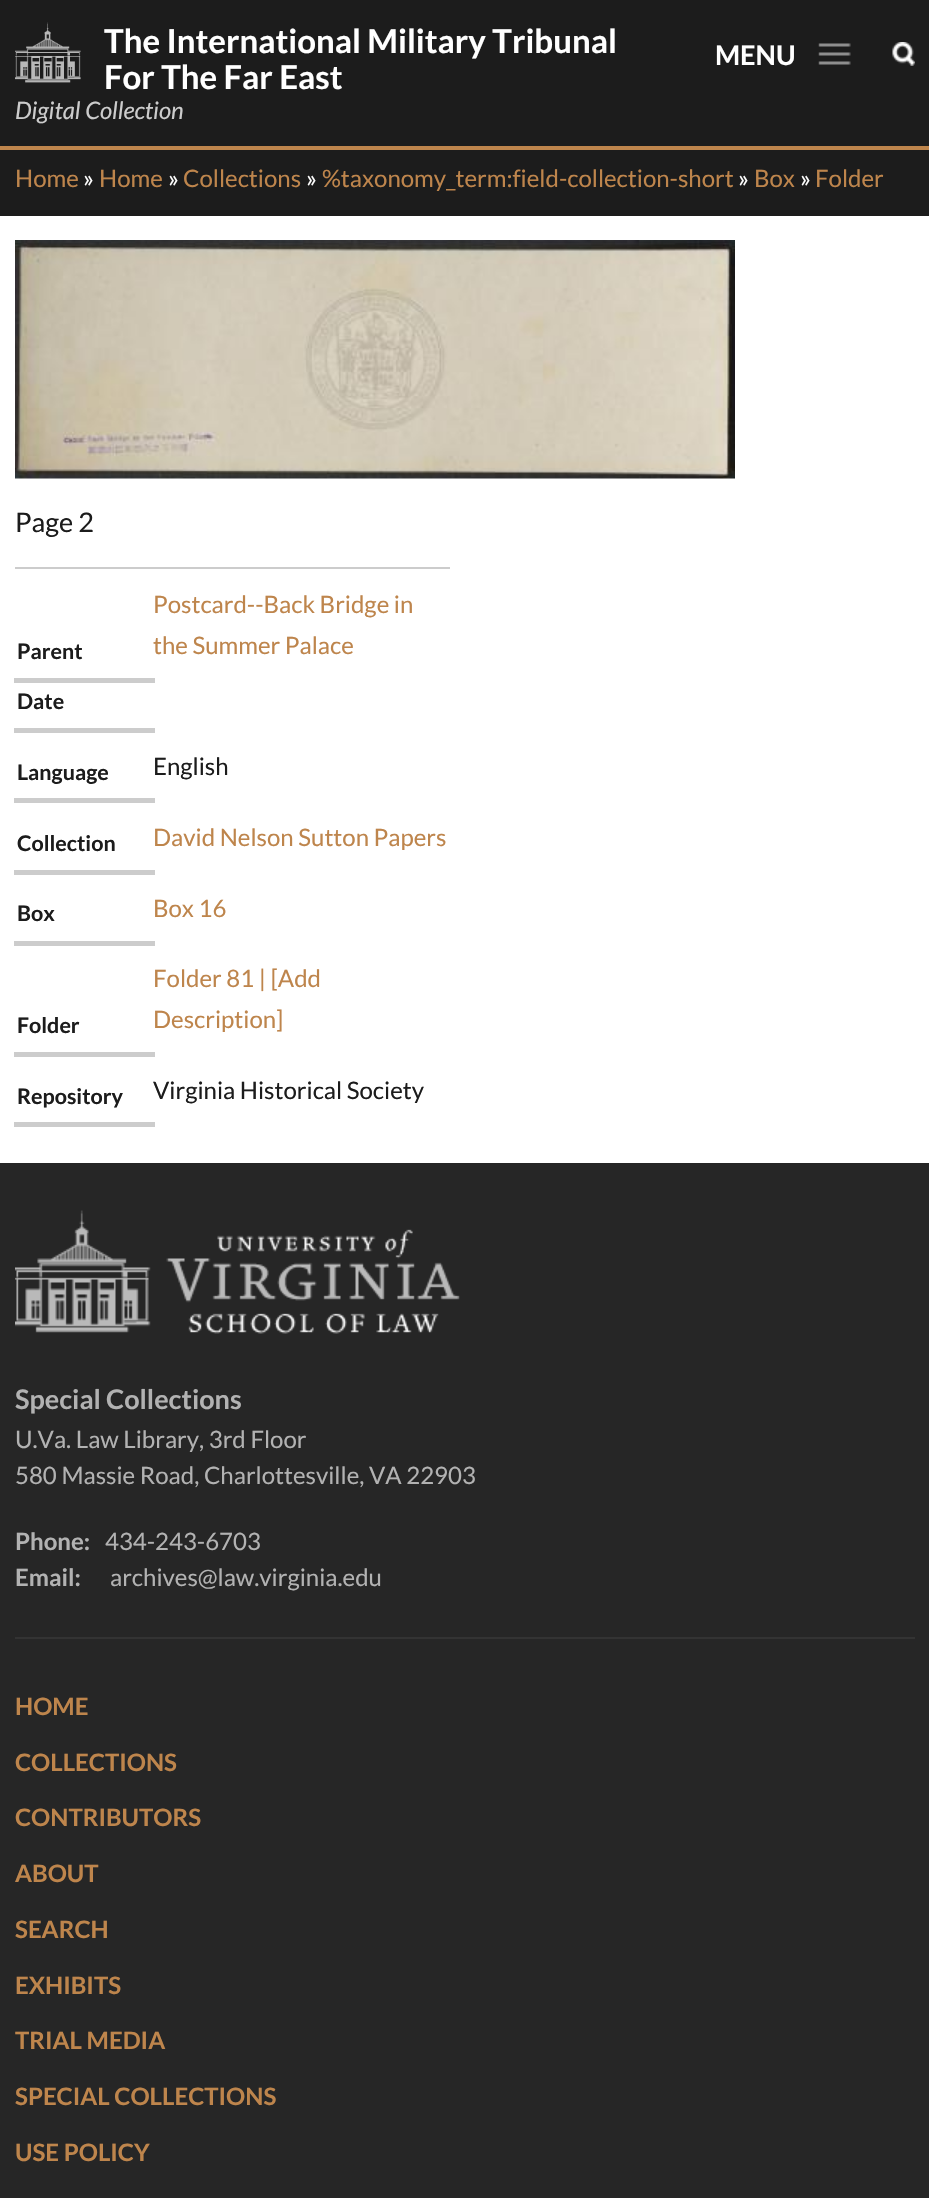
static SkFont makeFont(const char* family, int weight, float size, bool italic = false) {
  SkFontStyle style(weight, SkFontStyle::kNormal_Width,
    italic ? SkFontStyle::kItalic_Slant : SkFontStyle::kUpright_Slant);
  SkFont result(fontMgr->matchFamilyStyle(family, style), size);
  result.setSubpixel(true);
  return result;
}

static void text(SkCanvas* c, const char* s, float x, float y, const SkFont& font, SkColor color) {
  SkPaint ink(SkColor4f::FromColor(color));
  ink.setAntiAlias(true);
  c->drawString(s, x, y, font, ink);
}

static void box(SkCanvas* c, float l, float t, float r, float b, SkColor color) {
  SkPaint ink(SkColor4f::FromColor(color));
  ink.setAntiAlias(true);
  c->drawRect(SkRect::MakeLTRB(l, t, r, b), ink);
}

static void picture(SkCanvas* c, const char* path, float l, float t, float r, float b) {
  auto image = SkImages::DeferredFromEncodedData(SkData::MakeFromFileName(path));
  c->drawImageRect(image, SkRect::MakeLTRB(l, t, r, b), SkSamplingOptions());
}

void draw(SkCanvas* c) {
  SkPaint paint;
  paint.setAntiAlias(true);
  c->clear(0xffffffff);
  box(c, 0, 0, 929, 146, 0xff1c1c1c);
  box(c, 0, 146, 929, 150, 0xffbe854c);
  picture(c, "img_01.png", 15, 22, 81, 83);
  SkFont face1 = makeFont("Lato", 700, 33);
  text(c, "The International Military Tribunal", 104, 53, face1, 0xffffffff);
  text(c, "For The Far East", 104, 89, face1, 0xffffffff);
  SkFont face2 = makeFont("Lato", 400, 24, true);
  text(c, "Digital Collection", 15, 119, face2, 0xffcccccc);
  picture(c, "img_02.png", 818, 43, 851, 65);
  SkFont face3 = makeFont("Lato", 700, 27);
  text(c, "MENU", 715, 65, face3, 0xffffffff);
  picture(c, "img_03.png", 892, 42, 915, 66);
  box(c, 0, 150, 929, 216, 0xff1c1c1c);
  SkFont face4 = makeFont("Lato", 400, 24);
  text(c, "Home", 15, 187, face4, 0xffbe854c);
  text(c, "»", 83, 187, face4, 0xffffffff);
  text(c, "Home", 99, 187, face4, 0xffbe854c);
  text(c, "»", 168, 187, face4, 0xffffffff);
  text(c, "Collections", 183, 187, face4, 0xffbe854c);
  text(c, "»", 306, 187, face4, 0xffffffff);
  text(c, "%taxonomy_term:field-collection-short", 322, 187, face4, 0xffbe854c);
  text(c, "»", 738, 187, face4, 0xffffffff);
  text(c, "Box", 754, 187, face4, 0xffbe854c);
  text(c, "»", 800, 187, face4, 0xffffffff);
  text(c, "Folder", 815, 187, face4, 0xffbe854c);
  picture(c, "img_04.png", 15, 240, 735, 479);
  SkFont face5 = makeFont("Lato", 400, 27);
  text(c, "Page 2", 15, 532, face5, 0xff1c1c1c);
  box(c, 15, 567, 450, 569, 0xffcccccc);
  box(c, 14, 678, 155, 683, 0xffcccccc);
  SkFont face6 = makeFont("Lato", 700, 21.5f);
  text(c, "Parent", 17, 659, face6, 0xff1c1c1c);
  text(c, "Postcard--Back Bridge in", 153, 613, face4, 0xffbe854c);
  text(c, "the Summer Palace", 153, 654, face4, 0xffbe854c);
  box(c, 14, 728, 155, 733, 0xffcccccc);
  text(c, "Date", 17, 709, face6, 0xff1c1c1c);
  box(c, 14, 798, 155, 803, 0xffcccccc);
  text(c, "Language", 17, 780, face6, 0xff1c1c1c);
  text(c, "English", 153, 775, face4, 0xff1c1c1c);
  box(c, 14, 870, 155, 875, 0xffcccccc);
  text(c, "Collection", 17, 851, face6, 0xff1c1c1c);
  text(c, "David Nelson Sutton Papers", 153, 846, face4, 0xffbe854c);
  box(c, 14, 941, 155, 946, 0xffcccccc);
  text(c, "Box", 17, 921, face6, 0xff1c1c1c);
  text(c, "Box 16", 153, 917, face4, 0xffbe854c);
  box(c, 14, 1052, 155, 1057, 0xffcccccc);
  text(c, "Folder", 17, 1033, face6, 0xff1c1c1c);
  text(c, "Folder 81 | [Add", 153, 987, face4, 0xffbe854c);
  text(c, "Description]", 153, 1028, face4, 0xffbe854c);
  box(c, 14, 1122, 155, 1127, 0xffcccccc);
  text(c, "Repository", 17, 1104, face6, 0xff1c1c1c);
  text(c, "Virginia Historical Society", 153, 1099, face4, 0xff1c1c1c);
  box(c, 0, 1163, 929, 2198, 0xff262626);
  picture(c, "img_05.png", 15, 1210, 460, 1334);
  text(c, "Special Collections", 15, 1409, face3, 0xffb2b2b2);
  text(c, "U.Va. Law Library, 3rd Floor", 15, 1448, face4, 0xffb2b2b2);
  text(c, "580 Massie Road, Charlottesville, VA 22903", 15, 1484, face4, 0xffb2b2b2);
  SkFont face7 = makeFont("Lato", 700, 24);
  text(c, "Phone:", 15, 1550, face7, 0xffb2b2b2);
  text(c, "434-243-6703", 105, 1550, face4, 0xffb2b2b2);
  text(c, "Email:", 15, 1586, face7, 0xffb2b2b2);
  text(c, "archives@law.virginia.edu", 110, 1586, face4, 0xffb2b2b2);
  box(c, 15, 1637, 915, 1639, 0xff333333);
  text(c, "HOME", 15, 1715, face7, 0xffbe854c);
  text(c, "COLLECTIONS", 15, 1771, face7, 0xffbe854c);
  text(c, "CONTRIBUTORS", 15, 1826, face7, 0xffbe854c);
  text(c, "ABOUT", 15, 1882, face7, 0xffbe854c);
  text(c, "SEARCH", 15, 1938, face7, 0xffbe854c);
  text(c, "EXHIBITS", 15, 1994, face7, 0xffbe854c);
  text(c, "TRIAL MEDIA", 15, 2049, face7, 0xffbe854c);
  text(c, "SPECIAL COLLECTIONS", 15, 2105, face7, 0xffbe854c);
  text(c, "USE POLICY", 15, 2161, face7, 0xffbe854c);
}
